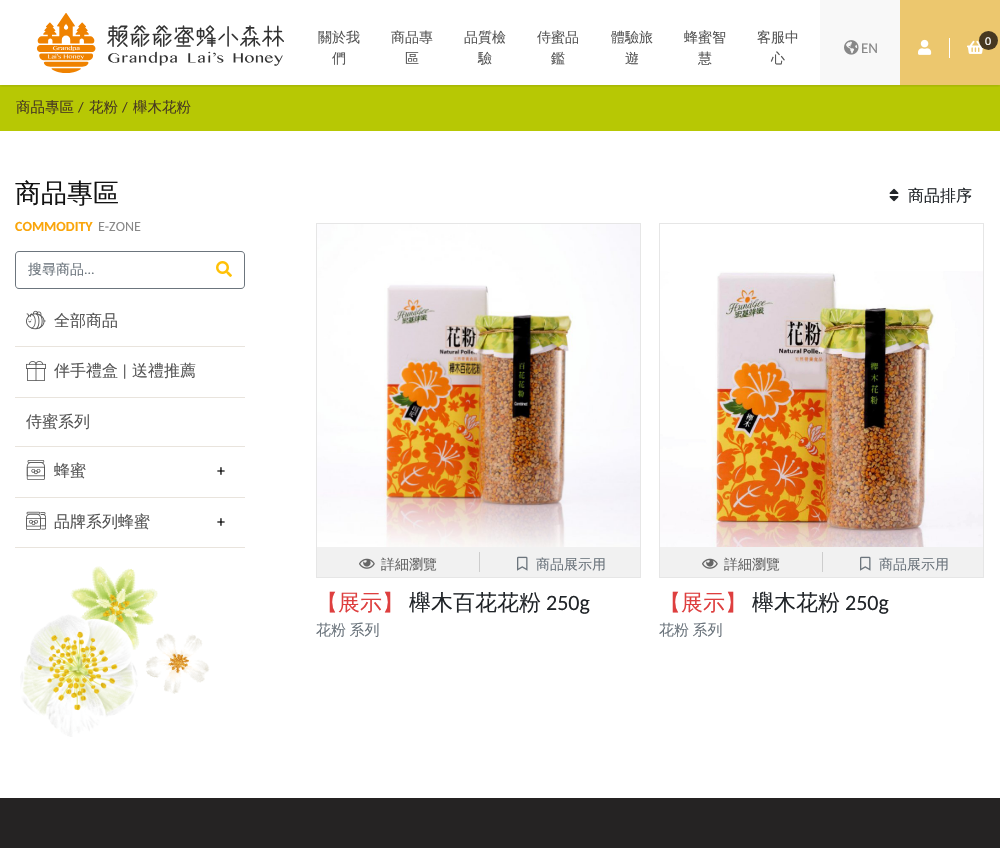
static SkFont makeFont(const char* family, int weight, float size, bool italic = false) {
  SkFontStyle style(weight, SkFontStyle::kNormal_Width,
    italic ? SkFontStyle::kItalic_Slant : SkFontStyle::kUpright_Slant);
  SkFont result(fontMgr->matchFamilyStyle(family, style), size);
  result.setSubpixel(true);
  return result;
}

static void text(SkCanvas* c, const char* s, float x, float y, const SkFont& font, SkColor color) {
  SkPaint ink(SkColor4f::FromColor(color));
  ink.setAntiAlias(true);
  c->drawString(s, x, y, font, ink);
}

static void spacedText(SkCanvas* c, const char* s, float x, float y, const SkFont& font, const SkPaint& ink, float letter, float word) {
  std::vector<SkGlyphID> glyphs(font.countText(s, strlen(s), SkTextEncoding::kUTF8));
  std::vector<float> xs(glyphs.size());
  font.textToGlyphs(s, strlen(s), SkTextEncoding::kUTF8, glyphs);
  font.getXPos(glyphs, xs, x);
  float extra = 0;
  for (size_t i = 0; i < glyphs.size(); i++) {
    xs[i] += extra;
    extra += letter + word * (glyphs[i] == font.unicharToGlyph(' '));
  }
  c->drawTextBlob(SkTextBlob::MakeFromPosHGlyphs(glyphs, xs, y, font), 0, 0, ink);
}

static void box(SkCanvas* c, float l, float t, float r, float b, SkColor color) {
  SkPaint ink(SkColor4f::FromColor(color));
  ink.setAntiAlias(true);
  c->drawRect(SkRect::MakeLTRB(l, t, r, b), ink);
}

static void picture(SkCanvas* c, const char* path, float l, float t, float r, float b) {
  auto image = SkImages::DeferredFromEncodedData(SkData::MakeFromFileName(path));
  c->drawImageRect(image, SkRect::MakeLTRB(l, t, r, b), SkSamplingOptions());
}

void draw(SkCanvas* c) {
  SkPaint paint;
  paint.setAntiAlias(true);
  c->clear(0xffffffff);
  box(c, 0, 85, 1000, 131, 0xffb7c804);
  c->save();
  c->clipRect(SkRect::MakeLTRB(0, 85, 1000, 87));
  paint.setColor(0x1f000000);
  paint.setMaskFilter(SkMaskFilter::MakeBlur(kNormal_SkBlurStyle, 1.5f));
  c->drawRect(SkRect::MakeLTRB(0, 1, 1000, 86), paint);
  paint.setMaskFilter(nullptr);
  c->restore();
  picture(c, "img_01.png", 36, 13, 284, 73);
  SkFont face1 = makeFont("WenQuanYi Zen Hei", 500, 14);
  text(c, "關於我", 318, 42, face1, 0xff555555);
  text(c, "們", 332, 63, face1, 0xff555555);
  text(c, "商品專", 391, 42, face1, 0xff555555);
  text(c, "區", 405, 63, face1, 0xff555555);
  text(c, "品質檢", 464, 42, face1, 0xff555555);
  text(c, "驗", 478, 63, face1, 0xff555555);
  text(c, "侍蜜品", 537, 42, face1, 0xff555555);
  text(c, "鑑", 551, 63, face1, 0xff555555);
  text(c, "體驗旅", 611, 42, face1, 0xff555555);
  text(c, "遊", 625, 63, face1, 0xff555555);
  text(c, "蜂蜜智", 684, 42, face1, 0xff555555);
  text(c, "慧", 698, 63, face1, 0xff555555);
  text(c, "客服中", 757, 42, face1, 0xff555555);
  text(c, "心", 771, 63, face1, 0xff555555);
  box(c, 900, 0, 1000, 85, 0xffecc76e);
  picture(c, "img_02.png", 918, 39, 932, 55);
  box(c, 949, 38, 950, 58, 0xffffffff);
  picture(c, "img_03.png", 967, 40, 983, 54);
  paint.setColor(0xff473921);
  c->drawCircle(988.5f, 40.5f, 9.5f, paint);
  SkFont face2 = makeFont("Carlito", 400, 12);
  text(c, "0", 985, 45, face2, 0xffffffff);
  box(c, 820, 0, 900, 85, 0xfff8f8f8);
  picture(c, "img_04.png", 844, 40, 859, 55);
  SkFont face3 = makeFont("Carlito", 400, 15);
  text(c, "EN", 861, 53, face3, 0xff888888);
  SkFont face4 = makeFont("WenQuanYi Zen Hei", 500, 14.5f);
  text(c, "商品專區", 16, 112, face4, 0xff473921);
  SkFont face5 = makeFont("Carlito", 400, 14.5f);
  text(c, "/", 78, 112, face5, 0xff473921);
  text(c, "花粉", 89, 112, face4, 0xff473921);
  text(c, "/", 122, 112, face5, 0xff473921);
  text(c, "櫸木花粉", 133, 112, face4, 0xff473921);
  SkFont face6 = makeFont("WenQuanYi Zen Hei", 500, 26);
  text(c, "商品專區", 15, 202, face6, 0xff121212);
  SkFont face7 = makeFont("Carlito", 700, 14);
  text(c, "COMMODITY", 15, 231, face7, 0xfffaa50a);
  SkFont face8 = makeFont("Carlito", 400, 14);
  text(c, "E-ZONE", 98, 231, face8, 0xff888888);
  picture(c, "img_05.png", 20, 566, 210, 737);
  paint.setColor(0xff6c757d);
  c->drawPath(SkPathBuilder(SkPathFillType::kEvenOdd).moveTo(19, 251).lineTo(205, 251).lineTo(205, 289).lineTo(19, 289).cubicTo(17, 289, 15, 287, 15, 285).lineTo(15, 255).cubicTo(15, 253, 17, 251, 19, 251).close().moveTo(19, 252).lineTo(205, 252).lineTo(205, 288).lineTo(19, 288).cubicTo(17, 288, 16, 287, 16, 285).lineTo(16, 255).cubicTo(16, 253, 17, 252, 19, 252).close().detach(), paint);
  text(c, "搜尋商品", 28, 274, face1, 0xff6c757d);
  text(c, "...", 84, 274, face8, 0xff6c757d);
  c->drawPath(SkPathBuilder(SkPathFillType::kEvenOdd).moveTo(204, 251).lineTo(241, 251).cubicTo(243, 251, 245, 253, 245, 255).lineTo(245, 285).cubicTo(245, 287, 243, 289, 241, 289).lineTo(204, 289).close().moveTo(204, 252).lineTo(241, 252).cubicTo(243, 252, 244, 253, 244, 255).lineTo(244, 285).cubicTo(244, 287, 243, 288, 241, 288).lineTo(204, 288).close().detach(), paint);
  picture(c, "img_06.png", 216, 261, 232, 277);
  box(c, 15, 346, 245, 347, 0xffe9e4dd);
  picture(c, "img_07.png", 26, 310, 46, 330);
  SkFont face9 = makeFont("WenQuanYi Zen Hei", 500, 16);
  text(c, "全部商品", 54, 326, face9, 0xff555555);
  box(c, 15, 397, 245, 398, 0xffe9e4dd);
  picture(c, "img_08.png", 26, 361, 46, 381);
  text(c, "伴手禮盒", 54, 376, face9, 0xff555555);
  SkFont face10 = makeFont("Carlito", 400, 16);
  text(c, "|", 121, 376, face10, 0xff555555);
  text(c, "送禮推薦", 132, 376, face9, 0xff555555);
  box(c, 15, 446, 245, 447, 0xffe9e4dd);
  text(c, "侍蜜系列", 26, 427, face9, 0xff555555);
  box(c, 15, 497, 245, 498, 0xffe9e4dd);
  picture(c, "img_09.png", 26, 460, 45, 480);
  text(c, "蜂蜜", 54, 476, face9, 0xff555555);
  text(c, "+", 217, 476, face10, 0xff000000);
  box(c, 15, 547, 245, 548, 0xffe9e4dd);
  picture(c, "img_10.png", 26, 511, 46, 530);
  text(c, "品牌系列蜂蜜", 54, 527, face9, 0xff555555);
  text(c, "+", 217, 527, face10, 0xff000000);
  picture(c, "img_11.png", 889, 188, 899, 202);
  text(c, "商品排序", 908, 201, face9, 0xff212529);
  paint.setStyle(SkPaint::kStroke_Style);
  paint.setStrokeWidth(1);
  paint.setColor(0xffe6e6e6);
  c->drawRect(SkRect::MakeLTRB(316.5f, 223.5f, 640.5f, 577.5f), paint);
  picture(c, "img_12.png", 317, 224, 640, 547);
  box(c, 317, 547, 640, 577, 0xfff1f1f1);
  picture(c, "img_13.png", 359, 558, 375, 569);
  text(c, "詳細瀏覽", 381, 569, face1, 0xff666666);
  box(c, 479, 552, 480, 572, 0xffcdcdcd);
  picture(c, "img_14.png", 517, 556, 528, 571);
  text(c, "商品展示用", 536, 569, face1, 0xff6c757d);
  SkFont face11 = makeFont("WenQuanYi Zen Hei", 500, 22);
  text(c, "【展示】", 316, 610, face11, 0xffde3f3f);
  text(c, "櫸木百花花粉", 409, 610, face11, 0xff212529);
  SkFont face12 = makeFont("Carlito", 400, 22);
  text(c, "250g", 546, 610, face12, 0xff212529);
  SkFont face13 = makeFont("WenQuanYi Zen Hei", 500, 15);
  paint.setStyle(SkPaint::kFill_Style);
  paint.setColor(0xff6c757d);
  spacedText(c, "花粉 系列", 316, 635, face13, paint, 0, -1);
  paint.setStyle(SkPaint::kStroke_Style);
  paint.setColor(0xffe6e6e6);
  c->drawRect(SkRect::MakeLTRB(659.5f, 223.5f, 983.5f, 577.5f), paint);
  picture(c, "img_15.png", 660, 271, 983, 547);
  box(c, 660, 547, 983, 577, 0xfff1f1f1);
  picture(c, "img_13.png", 702, 558, 718, 569);
  text(c, "詳細瀏覽", 724, 569, face1, 0xff666666);
  box(c, 822, 552, 823, 572, 0xffcdcdcd);
  picture(c, "img_14.png", 860, 556, 871, 571);
  text(c, "商品展示用", 879, 569, face1, 0xff6c757d);
  text(c, "【展示】", 659, 610, face11, 0xffde3f3f);
  text(c, "櫸木花粉", 752, 610, face11, 0xff212529);
  text(c, "250g", 845, 610, face12, 0xff212529);
  paint.setStyle(SkPaint::kFill_Style);
  paint.setColor(0xff6c757d);
  spacedText(c, "花粉 系列", 659, 635, face13, paint, 0, -1);
  box(c, 0, 798, 1000, 848, 0xff252323);
}
